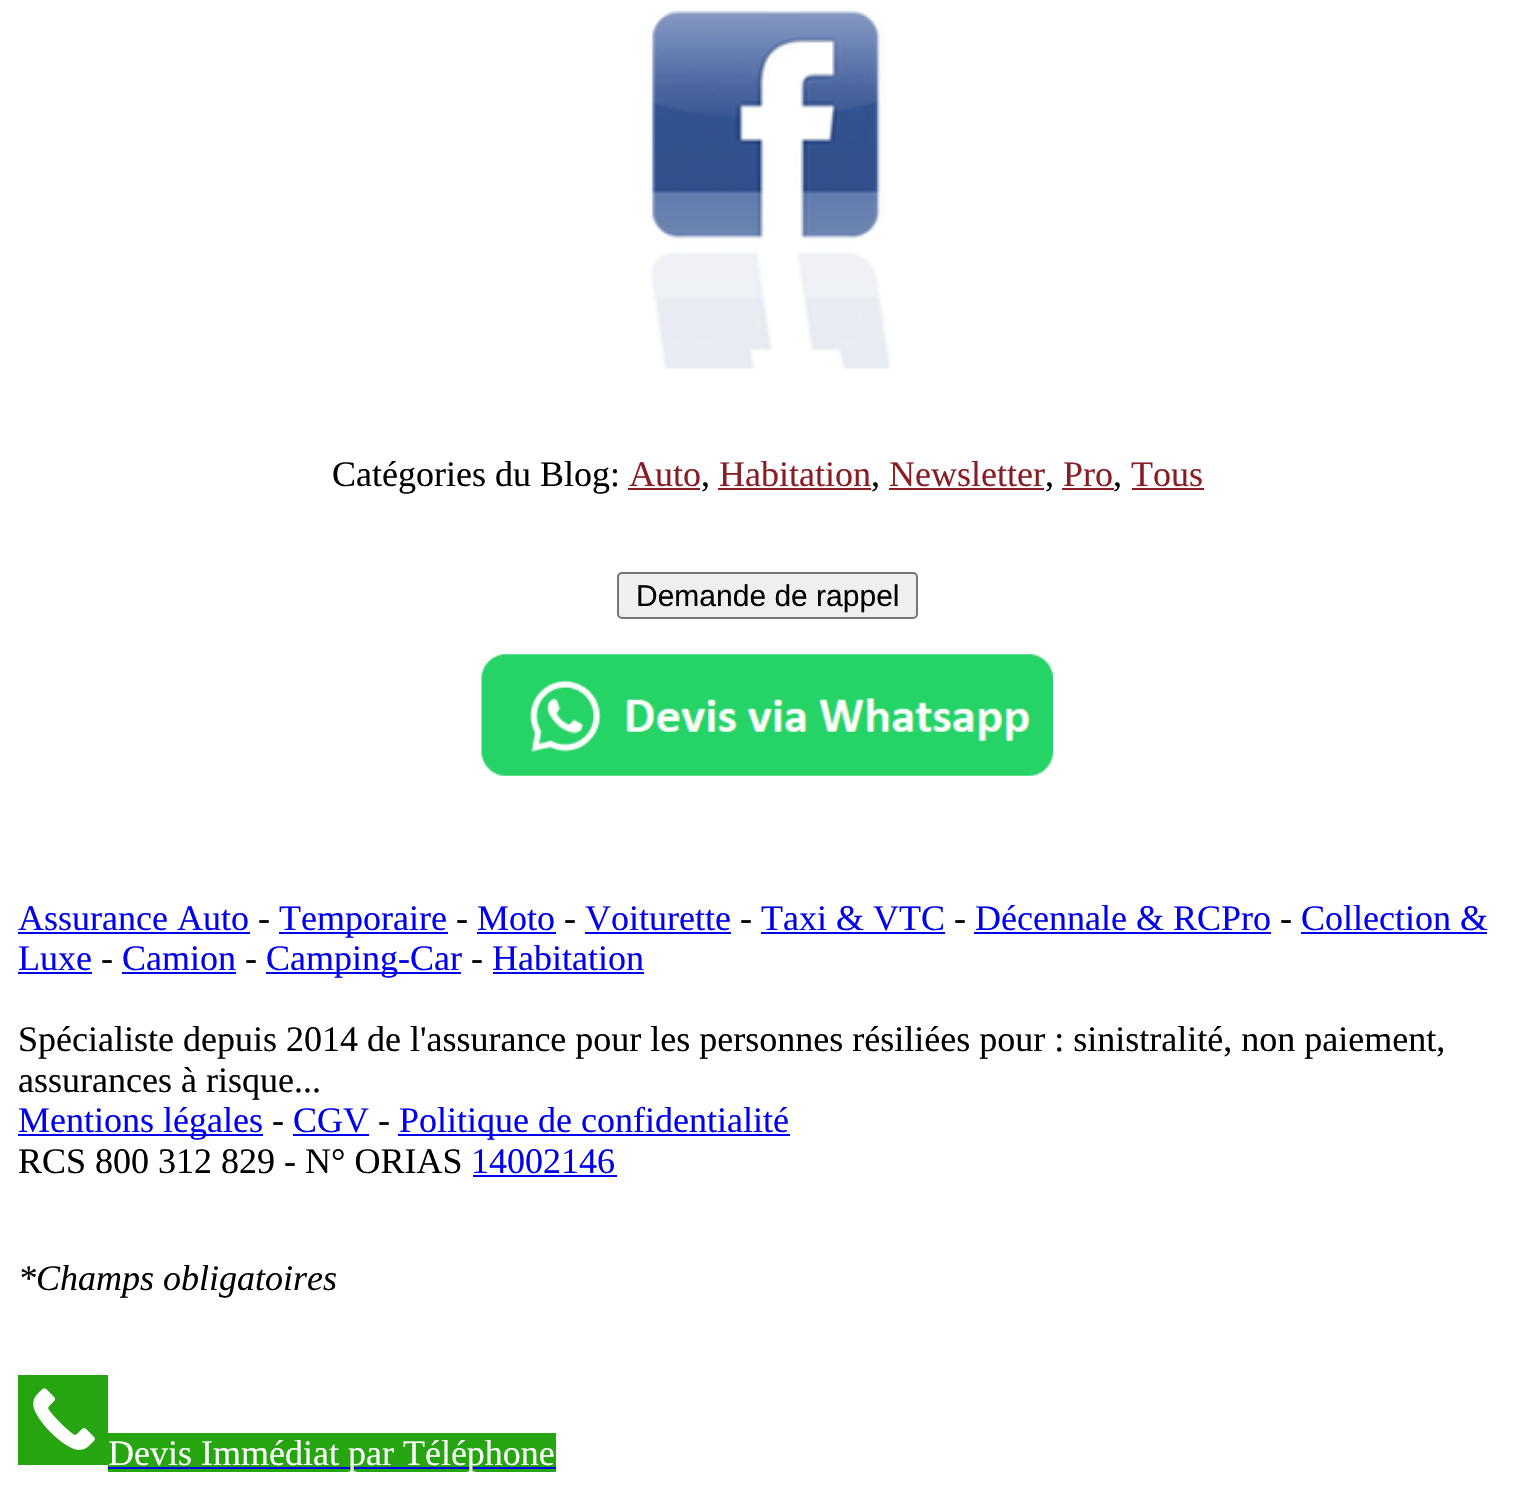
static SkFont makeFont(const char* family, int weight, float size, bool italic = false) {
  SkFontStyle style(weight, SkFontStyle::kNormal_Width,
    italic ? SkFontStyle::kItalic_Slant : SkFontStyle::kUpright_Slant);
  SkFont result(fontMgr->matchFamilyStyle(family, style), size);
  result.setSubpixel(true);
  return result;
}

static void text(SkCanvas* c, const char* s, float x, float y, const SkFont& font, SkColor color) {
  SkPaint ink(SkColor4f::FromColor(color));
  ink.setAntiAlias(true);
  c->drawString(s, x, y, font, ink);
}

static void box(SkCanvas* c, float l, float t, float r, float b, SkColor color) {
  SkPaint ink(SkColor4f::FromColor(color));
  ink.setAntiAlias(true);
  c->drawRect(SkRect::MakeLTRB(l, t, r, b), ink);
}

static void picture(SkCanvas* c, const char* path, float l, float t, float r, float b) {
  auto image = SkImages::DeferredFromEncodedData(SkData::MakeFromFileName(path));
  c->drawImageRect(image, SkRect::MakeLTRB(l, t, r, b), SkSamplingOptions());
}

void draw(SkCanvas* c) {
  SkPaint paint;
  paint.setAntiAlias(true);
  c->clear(0xffffffff);
  picture(c, "img_01.png", 650, 10, 891, 369);
  SkFont face1 = makeFont("Liberation Serif", 400, 36);
  text(c, "Catégories du Blog:", 332, 486, face1, 0xff000000);
  text(c, "Auto", 629, 486, face1, 0xff891d23);
  box(c, 628, 488, 700, 490, 0xff891d23);
  text(c, ",", 701, 486, face1, 0xff000000);
  text(c, "Habitation", 719, 486, face1, 0xff891d23);
  box(c, 718, 488, 871, 490, 0xff891d23);
  text(c, ",", 871, 486, face1, 0xff000000);
  text(c, "Newsletter", 889, 486, face1, 0xff891d23);
  box(c, 889, 488, 1044, 490, 0xff891d23);
  text(c, ",", 1045, 486, face1, 0xff000000);
  text(c, "Pro", 1063, 486, face1, 0xff891d23);
  box(c, 1062, 488, 1114, 490, 0xff891d23);
  text(c, ",", 1113, 486, face1, 0xff000000);
  text(c, "Tous", 1131, 486, face1, 0xff891d23);
  box(c, 1132, 488, 1204, 490, 0xff891d23);
  paint.setColor(0xffefefef);
  c->drawRoundRect(SkRect::MakeLTRB(618, 573, 917, 618), 4, 4, paint);
  paint.setStyle(SkPaint::kStroke_Style);
  paint.setStrokeWidth(2);
  paint.setColor(0xff767676);
  c->drawRoundRect(SkRect::MakeLTRB(618, 573, 917, 618), 4, 4, paint);
  SkFont face2 = makeFont("Liberation Sans", 400, 30);
  text(c, "Demande de rappel", 636, 606, face2, 0xff000000);
  picture(c, "img_02.png", 481, 654, 1053, 776);
  text(c, "Assurance Auto", 18, 930, face1, 0xff0000ee);
  box(c, 18, 932, 250, 934, 0xff0000ee);
  text(c, "-", 258, 930, face1, 0xff000000);
  box(c, 279, 932, 448, 934, 0xff0000ee);
  text(c, "Temporaire", 279, 930, face1, 0xff0000ee);
  text(c, "-", 456, 930, face1, 0xff000000);
  text(c, "Moto", 477, 930, face1, 0xff0000ee);
  box(c, 477, 932, 556, 934, 0xff0000ee);
  text(c, "-", 564, 930, face1, 0xff000000);
  text(c, "Voiturette", 585, 930, face1, 0xff0000ee);
  box(c, 585, 932, 731, 934, 0xff0000ee);
  text(c, "-", 740, 930, face1, 0xff000000);
  text(c, "Taxi & VTC", 761, 930, face1, 0xff0000ee);
  box(c, 761, 932, 945, 934, 0xff0000ee);
  text(c, "-", 954, 930, face1, 0xff000000);
  text(c, "Décennale & RCPro", 975, 930, face1, 0xff0000ee);
  box(c, 974, 932, 1271, 934, 0xff0000ee);
  text(c, "-", 1280, 930, face1, 0xff000000);
  text(c, "Collection &", 1301, 930, face1, 0xff0000ee);
  box(c, 1301, 932, 1487, 934, 0xff0000ee);
  text(c, "Luxe", 18, 970, face1, 0xff0000ee);
  box(c, 18, 972, 92, 974, 0xff0000ee);
  text(c, "-", 101, 970, face1, 0xff000000);
  text(c, "Camion", 122, 970, face1, 0xff0000ee);
  box(c, 122, 972, 236, 974, 0xff0000ee);
  text(c, "-", 245, 970, face1, 0xff000000);
  box(c, 266, 972, 461, 974, 0xff0000ee);
  text(c, "Camping-Car", 266, 970, face1, 0xff0000ee);
  text(c, "-", 471, 970, face1, 0xff000000);
  text(c, "Habitation", 492, 970, face1, 0xff0000ee);
  box(c, 493, 972, 644, 974, 0xff0000ee);
  text(c, "Spécialiste depuis 2014 de l'assurance pour les personnes résiliées pour : sinistralité, non paiement,", 18, 1051, face1, 0xff000000);
  text(c, "assurances à risque...", 18, 1092, face1, 0xff000000);
  box(c, 18, 1134, 263, 1136, 0xff0000ee);
  text(c, "Mentions légales", 18, 1132, face1, 0xff0000ee);
  text(c, "-", 272, 1132, face1, 0xff000000);
  text(c, "CGV", 293, 1132, face1, 0xff0000ee);
  box(c, 293, 1134, 369, 1136, 0xff0000ee);
  text(c, "-", 378, 1132, face1, 0xff000000);
  box(c, 398, 1134, 790, 1136, 0xff0000ee);
  text(c, "Politique de confidentialité", 399, 1132, face1, 0xff0000ee);
  text(c, "RCS 800 312 829 - N° ORIAS", 18, 1173, face1, 0xff000000);
  text(c, "14002146", 471, 1173, face1, 0xff0000ee);
  box(c, 473, 1175, 617, 1177, 0xff0000ee);
  SkFont face3 = makeFont("Liberation Serif", 400, 36, true);
  text(c, "*Champs obligatoires", 18, 1290, face3, 0xff000000);
  box(c, 18, 1375, 108, 1465, 0xff26a510);
  picture(c, "img_03.png", 33, 1388, 95, 1450);
  box(c, 108, 1433, 556, 1472, 0xff26a510);
  box(c, 108, 1467, 556, 1469, 0xff0000ee);
  text(c, "Devis Immédiat par Téléphone", 108, 1465, face1, 0xffffffff);
}
